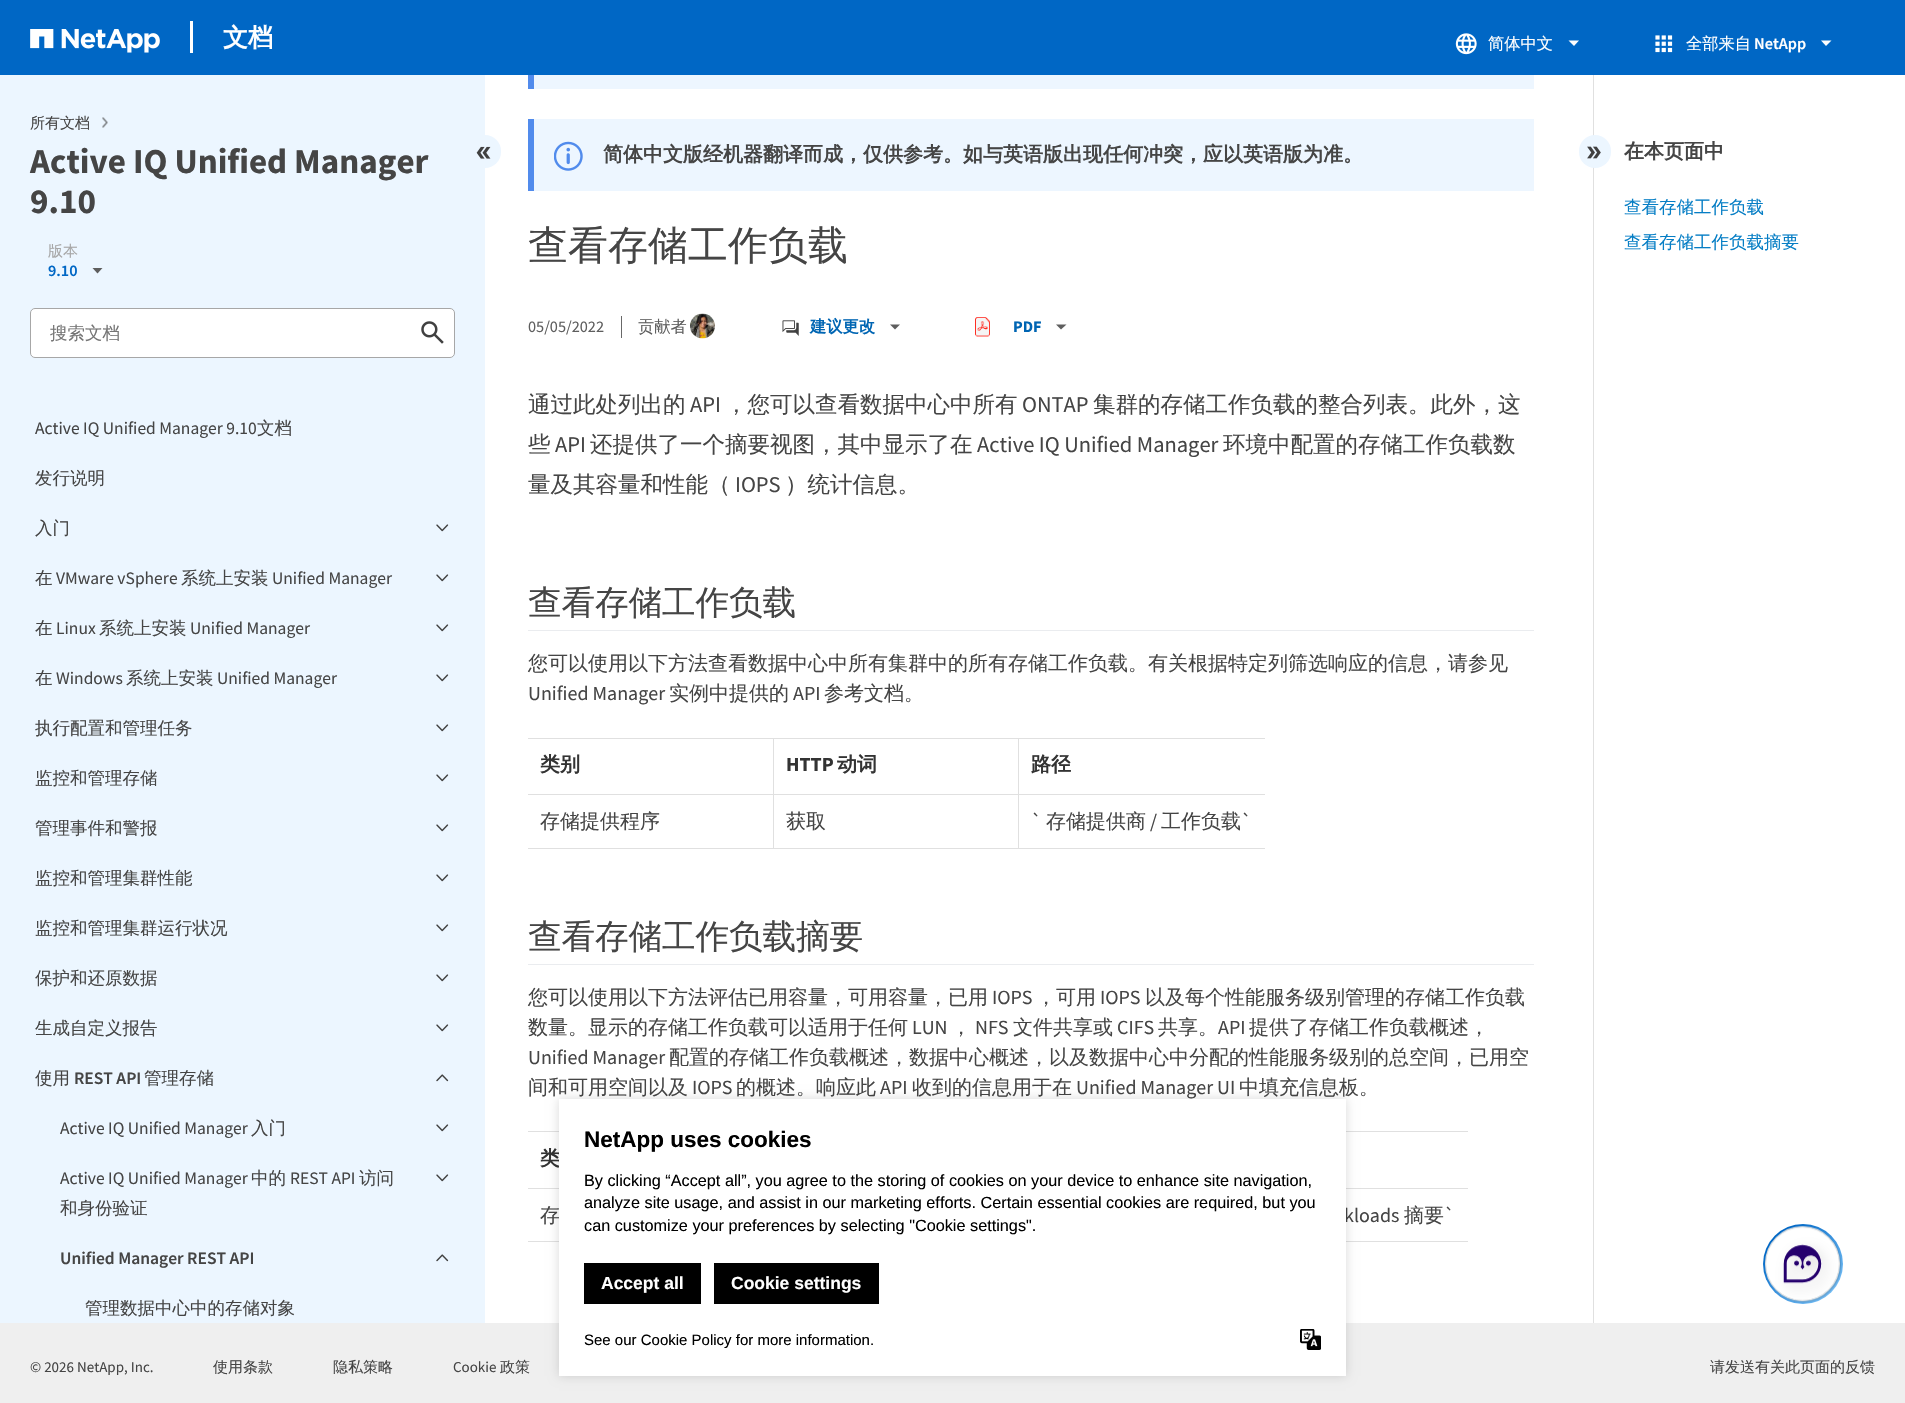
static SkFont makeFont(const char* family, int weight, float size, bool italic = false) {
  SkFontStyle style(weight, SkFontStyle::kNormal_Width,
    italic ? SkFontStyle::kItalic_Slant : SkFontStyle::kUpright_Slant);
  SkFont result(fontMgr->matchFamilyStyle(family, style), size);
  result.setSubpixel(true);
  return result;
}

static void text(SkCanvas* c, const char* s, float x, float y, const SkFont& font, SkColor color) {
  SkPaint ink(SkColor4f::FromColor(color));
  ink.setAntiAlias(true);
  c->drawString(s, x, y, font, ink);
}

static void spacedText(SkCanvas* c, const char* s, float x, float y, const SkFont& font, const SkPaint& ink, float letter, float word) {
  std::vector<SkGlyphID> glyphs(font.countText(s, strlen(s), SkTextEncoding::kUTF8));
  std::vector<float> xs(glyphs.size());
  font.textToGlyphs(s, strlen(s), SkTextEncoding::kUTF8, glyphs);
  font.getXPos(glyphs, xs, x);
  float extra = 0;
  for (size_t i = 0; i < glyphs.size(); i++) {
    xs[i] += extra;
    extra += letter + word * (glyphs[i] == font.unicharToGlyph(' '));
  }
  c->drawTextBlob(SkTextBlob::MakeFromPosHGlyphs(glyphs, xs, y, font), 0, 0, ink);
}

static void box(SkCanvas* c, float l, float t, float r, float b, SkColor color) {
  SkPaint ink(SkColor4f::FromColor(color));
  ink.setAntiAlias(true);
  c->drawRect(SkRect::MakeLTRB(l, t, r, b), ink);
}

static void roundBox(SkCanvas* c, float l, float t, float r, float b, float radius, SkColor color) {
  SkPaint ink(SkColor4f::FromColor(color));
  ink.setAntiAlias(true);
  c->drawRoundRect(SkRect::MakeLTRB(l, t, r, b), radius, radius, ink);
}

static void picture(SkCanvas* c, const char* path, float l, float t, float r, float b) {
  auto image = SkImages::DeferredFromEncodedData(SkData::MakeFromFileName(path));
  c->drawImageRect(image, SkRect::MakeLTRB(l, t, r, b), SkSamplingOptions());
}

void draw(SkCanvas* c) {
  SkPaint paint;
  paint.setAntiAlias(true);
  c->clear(0xffffffff);
  box(c, 0, 0, 1905, 75, 0xff0067c5);
  picture(c, "img_01.png", 30, 29, 160, 53);
  box(c, 190, 21, 193, 53, 0xffffffff);
  SkFont face1 = makeFont("WenQuanYi Zen Hei", 700, 25);
  text(c, "文档", 223, 46, face1, 0xffffffff);
  picture(c, "img_02.png", 1455, 33, 1477, 55);
  SkFont face2 = makeFont("WenQuanYi Zen Hei", 500, 16.25f);
  text(c, "简体中文", 1488, 49, face2, 0xffffffff);
  paint.setColor(0xfffdfdfd);
  c->drawPath(SkPathBuilder().moveTo(1574, 46).lineTo(1568.5f, 40.5f).lineTo(1579, 40.5f).close().detach(), paint);
  picture(c, "img_03.png", 1655, 35, 1673, 53);
  text(c, "全部来自", 1686, 49, face2, 0xffffffff);
  SkFont face3 = makeFont("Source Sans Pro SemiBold", 600, 16.25f);
  text(c, "NetApp", 1754, 49, face3, 0xffffffff);
  c->drawPath(SkPathBuilder().moveTo(1826, 46).lineTo(1821, 40.5f).lineTo(1831.5f, 40.5f).close().detach(), paint);
  box(c, 0, 75, 485, 1323, 0xffecf6ff);
  SkFont face4 = makeFont("WenQuanYi Zen Hei", 500, 15);
  text(c, "所有文档", 30, 128, face4, 0xff454545);
  picture(c, "img_04.png", 102, 117, 108, 128);
  SkFont face5 = makeFont("Source Sans Pro", 700, 35);
  text(c, "Active IQ Unified Manager", 30, 173, face5, 0xff454545);
  text(c, "9.10", 30, 213, face5, 0xff454545);
  roundBox(c, 469, 135, 501, 168, 16, 0xffecf6ff);
  picture(c, "img_05.png", 476, 146, 491, 159);
  text(c, "版本", 48, 256, face4, 0xffa7a7a7);
  text(c, "9.10", 48, 276, face3, 0xff0067c5);
  paint.setColor(0xff5e5e5e);
  c->drawPath(SkPathBuilder().moveTo(97.5f, 273.5f).lineTo(92.5f, 268).lineTo(102.5f, 268).close().detach(), paint);
  paint.setColor(0xffffffff);
  c->drawRoundRect(SkRect::MakeLTRB(30.5f, 308.5f, 454.5f, 357.5f), 4.5f, 4.5f, paint);
  paint.setStyle(SkPaint::kStroke_Style);
  paint.setStrokeWidth(1);
  paint.setColor(0xffa7a7a7);
  c->drawRoundRect(SkRect::MakeLTRB(30.5f, 308.5f, 454.5f, 357.5f), 4.5f, 4.5f, paint);
  SkFont face6 = makeFont("WenQuanYi Zen Hei", 500, 17.5f);
  text(c, "搜索文档", 50, 339, face6, 0xff757575);
  picture(c, "img_06.png", 421, 321, 444, 344);
  SkFont face7 = makeFont("Source Sans Pro", 400, 17.5f);
  text(c, "Active IQ Unified Manager 9.10", 35, 434, face7, 0xff454545);
  text(c, "文档", 257, 434, face6, 0xff454545);
  text(c, "发行说明", 35, 484, face6, 0xff454545);
  text(c, "入门", 35, 534, face6, 0xff454545);
  picture(c, "img_07.png", 436, 524, 449, 532);
  text(c, "在", 35, 584, face6, 0xff454545);
  text(c, "VMware vSphere", 56, 584, face7, 0xff454545);
  text(c, "系统上安装", 181, 584, face6, 0xff454545);
  text(c, "Unified Manager", 272, 584, face7, 0xff454545);
  picture(c, "img_07.png", 436, 574, 449, 582);
  text(c, "在", 35, 634, face6, 0xff454545);
  text(c, "Linux", 56, 634, face7, 0xff454545);
  text(c, "系统上安装", 99, 634, face6, 0xff454545);
  text(c, "Unified Manager", 190, 634, face7, 0xff454545);
  picture(c, "img_07.png", 436, 624, 449, 632);
  text(c, "在", 35, 684, face6, 0xff454545);
  text(c, "Windows", 56, 684, face7, 0xff454545);
  text(c, "系统上安装", 126, 684, face6, 0xff454545);
  text(c, "Unified Manager", 217, 684, face7, 0xff454545);
  picture(c, "img_07.png", 436, 674, 449, 682);
  text(c, "执行配置和管理任务", 35, 734, face6, 0xff454545);
  picture(c, "img_07.png", 436, 724, 449, 732);
  text(c, "监控和管理存储", 35, 784, face6, 0xff454545);
  picture(c, "img_07.png", 436, 774, 449, 782);
  text(c, "管理事件和警报", 35, 834, face6, 0xff454545);
  picture(c, "img_07.png", 436, 824, 449, 832);
  text(c, "监控和管理集群性能", 35, 884, face6, 0xff454545);
  picture(c, "img_07.png", 436, 874, 449, 882);
  text(c, "监控和管理集群运行状况", 35, 934, face6, 0xff454545);
  picture(c, "img_07.png", 436, 924, 449, 932);
  text(c, "保护和还原数据", 35, 984, face6, 0xff454545);
  picture(c, "img_07.png", 436, 974, 449, 982);
  text(c, "生成自定义报告", 35, 1034, face6, 0xff454545);
  picture(c, "img_07.png", 436, 1024, 449, 1032);
  text(c, "使用", 35, 1084, face6, 0xff454545);
  SkFont face8 = makeFont("Source Sans Pro SemiBold", 600, 17.5f);
  text(c, "REST API", 74, 1084, face8, 0xff454545);
  text(c, "管理存储", 144, 1084, face6, 0xff454545);
  picture(c, "img_08.png", 436, 1074, 449, 1082);
  text(c, "Active IQ Unified Manager", 60, 1134, face7, 0xff454545);
  text(c, "入门", 251, 1134, face6, 0xff454545);
  picture(c, "img_07.png", 436, 1124, 449, 1132);
  text(c, "Active IQ Unified Manager", 60, 1184, face7, 0xff454545);
  text(c, "中的", 251, 1184, face6, 0xff454545);
  text(c, "REST API", 290, 1184, face7, 0xff454545);
  text(c, "访问", 359, 1184, face6, 0xff454545);
  picture(c, "img_07.png", 436, 1174, 449, 1182);
  text(c, "和身份验证", 60, 1214, face6, 0xff454545);
  text(c, "Unified Manager REST API", 60, 1264, face8, 0xff454545);
  picture(c, "img_08.png", 436, 1254, 449, 1262);
  text(c, "管理数据中心中的存储对象", 85, 1314, face6, 0xff454545);
  box(c, 534, 75, 1534, 89, 0xffedf6ff);
  box(c, 528, 75, 534, 89, 0xff518bec);
  box(c, 534, 119, 1534, 191, 0xffedf6ff);
  box(c, 528, 119, 534, 191, 0xff518bec);
  picture(c, "img_09.png", 554, 141, 583, 171);
  SkFont face9 = makeFont("WenQuanYi Zen Hei", 700, 20);
  text(c, "简体中文版经机器翻译而成，仅供参考。如与英语版出现任何冲突，应以英语版为准。", 603, 161, face9, 0xff454545);
  SkFont face10 = makeFont("WenQuanYi Zen Hei", 500, 40);
  text(c, "查看存储工作负载", 528, 259, face10, 0xff454545);
  SkFont face11 = makeFont("Source Sans Pro", 400, 16.25f);
  text(c, "05/05/2022", 528, 332, face11, 0xff5e5e5e);
  box(c, 621, 316, 622, 338, 0xff686868);
  text(c, "贡献者", 638, 332, face2, 0xff5e5e5e);
  picture(c, "img_10.png", 690, 313, 715, 339);
  picture(c, "img_11.png", 782, 320, 799, 336);
  SkFont face12 = makeFont("WenQuanYi Zen Hei", 700, 16.25f);
  text(c, "建议更改", 810, 332, face12, 0xff0065b3);
  paint.setStyle(SkPaint::kFill_Style);
  paint.setColor(0xff5e5e5e);
  c->drawPath(SkPathBuilder().moveTo(895, 329.5f).lineTo(890, 324.5f).lineTo(900, 324.5f).close().detach(), paint);
  picture(c, "img_12.png", 975, 317, 990, 337);
  SkFont face13 = makeFont("Source Sans Pro", 700, 16.25f);
  text(c, "PDF", 1013, 332, face13, 0xff0065b3);
  c->drawPath(SkPathBuilder().moveTo(1061, 329.5f).lineTo(1056, 324.5f).lineTo(1066.5f, 324.5f).close().detach(), paint);
  SkFont face14 = makeFont("WenQuanYi Zen Hei", 500, 22.5f);
  text(c, "通过此处列出的", 528, 412, face14, 0xff454545);
  SkFont face15 = makeFont("Source Sans Pro", 400, 22.5f);
  text(c, "API", 690, 412, face15, 0xff454545);
  text(c, "，您可以查看数据中心中所有", 725, 412, face14, 0xff454545);
  text(c, "ONTAP", 1022, 412, face15, 0xff454545);
  text(c, "集群的存储工作负载的整合列表。此外，这", 1093, 412, face14, 0xff454545);
  text(c, "些", 528, 452, face14, 0xff454545);
  text(c, "API", 555, 452, face15, 0xff454545);
  text(c, "还提供了一个摘要视图，其中显示了在", 590, 452, face14, 0xff454545);
  text(c, "Active IQ Unified Manager", 977, 452, face15, 0xff454545);
  text(c, "环境中配置的存储工作负载数", 1223, 452, face14, 0xff454545);
  text(c, "量及其容量和性能（", 528, 492, face14, 0xff454545);
  text(c, "IOPS", 735, 492, face15, 0xff454545);
  text(c, "）统计信息。", 785, 492, face14, 0xff454545);
  box(c, 528, 630, 1534, 631, 0xffeaecef);
  SkFont face16 = makeFont("WenQuanYi Zen Hei", 500, 33.75f);
  paint.setColor(0xff454545);
  spacedText(c, "查看存储工作负载", 528, 614, face16, paint, -0.25f, 0);
  SkFont face17 = makeFont("WenQuanYi Zen Hei", 500, 20);
  text(c, "您可以使用以下方法查看数据中心中所有集群中的所有存储工作负载。有关根据特定列筛选响应的信息，请参见", 528, 670, face17, 0xff454545);
  SkFont face18 = makeFont("Source Sans Pro", 400, 20);
  text(c, "Unified Manager", 528, 700, face18, 0xff454545);
  text(c, "实例中提供的", 669, 700, face17, 0xff454545);
  text(c, "API", 793, 700, face18, 0xff454545);
  text(c, "参考文档。", 824, 700, face17, 0xff454545);
  box(c, 528, 738, 1265, 739, 0xffe0e0e0);
  box(c, 528, 848, 1265, 849, 0xffe0e0e0);
  box(c, 773, 739, 774, 848, 0xffe0e0e0);
  box(c, 528, 794, 774, 795, 0xffe0e0e0);
  text(c, "类别", 540, 771, face9, 0xff333333);
  box(c, 1018, 739, 1019, 848, 0xffe0e0e0);
  box(c, 774, 794, 1265, 795, 0xffe0e0e0);
  SkFont face19 = makeFont("Source Sans Pro", 700, 20);
  text(c, "HTTP", 786, 771, face19, 0xff333333);
  text(c, "动词", 837, 771, face9, 0xff333333);
  text(c, "路径", 1031, 771, face9, 0xff333333);
  text(c, "存储提供程序", 540, 828, face17, 0xff454545);
  text(c, "获取", 786, 828, face17, 0xff454545);
  text(c, "`", 1031, 828, face18, 0xff454545);
  text(c, "存储提供商", 1046, 828, face17, 0xff454545);
  text(c, "/", 1150, 828, face18, 0xff454545);
  text(c, "工作负载", 1161, 828, face17, 0xff454545);
  text(c, "`", 1241, 828, face18, 0xff454545);
  box(c, 528, 964, 1534, 965, 0xffeaecef);
  spacedText(c, "查看存储工作负载摘要", 528, 948, face16, paint, -0.25f, 0);
  text(c, "您可以使用以下方法评估已用容量，可用容量，已用", 528, 1004, face17, 0xff454545);
  text(c, "IOPS", 992, 1004, face18, 0xff454545);
  text(c, "，可用", 1036, 1004, face17, 0xff454545);
  text(c, "IOPS", 1100, 1004, face18, 0xff454545);
  text(c, "以及每个性能服务级别管理的存储工作负载", 1145, 1004, face17, 0xff454545);
  text(c, "数量。显示的存储工作负载可以适用于任何", 528, 1034, face17, 0xff454545);
  text(c, "LUN", 912, 1034, face18, 0xff454545);
  text(c, "，", 951, 1034, face17, 0xff454545);
  text(c, "NFS", 975, 1034, face18, 0xff454545);
  text(c, "文件共享或", 1013, 1034, face17, 0xff454545);
  text(c, "CIFS", 1117, 1034, face18, 0xff454545);
  text(c, "共享。", 1158, 1034, face17, 0xff454545);
  text(c, "API", 1218, 1034, face18, 0xff454545);
  text(c, "提供了存储工作负载概述，", 1249, 1034, face17, 0xff454545);
  text(c, "Unified Manager", 528, 1064, face18, 0xff454545);
  text(c, "配置的存储工作负载概述，数据中心概述，以及数据中心中分配的性能服务级别的总空间，已用空", 669, 1064, face17, 0xff454545);
  text(c, "间和可用空间以及", 528, 1094, face17, 0xff454545);
  text(c, "IOPS", 692, 1094, face18, 0xff454545);
  text(c, "的概述。响应此", 736, 1094, face17, 0xff454545);
  text(c, "API", 880, 1094, face18, 0xff454545);
  text(c, "收到的信息用于在", 912, 1094, face17, 0xff454545);
  text(c, "Unified Manager UI", 1076, 1094, face18, 0xff454545);
  text(c, "中填充信息板。", 1239, 1094, face17, 0xff454545);
  box(c, 528, 1131, 1468, 1132, 0xffe0e0e0);
  box(c, 528, 1241, 1468, 1242, 0xffe0e0e0);
  box(c, 528, 1188, 559, 1189, 0xffe0e0e0);
  text(c, "类", 540, 1165, face9, 0xff333333);
  box(c, 1346, 1188, 1468, 1189, 0xffe0e0e0);
  text(c, "存", 540, 1222, face17, 0xff454545);
  text(c, "kloads", 1344, 1222, face18, 0xff454545);
  text(c, "摘要", 1404, 1222, face17, 0xff454545);
  text(c, "`", 1444, 1222, face18, 0xff454545);
  box(c, 1593, 75, 1594, 1323, 0xffe0e0e0);
  roundBox(c, 1579, 135, 1611, 168, 16, 0xffecf6ff);
  picture(c, "img_13.png", 1587, 146, 1601, 159);
  text(c, "在本页面中", 1624, 158, face9, 0xff454545);
  text(c, "查看存储工作负载", 1624, 213, face6, 0xff067ec5);
  text(c, "查看存储工作负载摘要", 1624, 248, face6, 0xff067ec5);
  {
    const SkColor colors[] = {0xff0067c5, 0xff7ac3fa};
    const float stops[] = {0.18f, 0.89f};
    const SkPoint ends[] = {{1763, 1224}, {1843, 1304}};
    paint.setShader(SkGradientShader::MakeLinear(ends, colors, stops, 2, SkTileMode::kClamp));
    paint.setAlpha(255);
  }
  c->drawCircle(1803, 1264, 40, paint);
  picture(c, "img_14.png", 1765, 1226, 1842, 1303);
  box(c, 0, 1323, 1905, 1403, 0xffefefef);
  SkFont face20 = makeFont("Source Sans Pro", 400, 15);
  text(c, "© 2026 NetApp, Inc.", 30, 1372, face20, 0xff454545);
  text(c, "使用条款", 213, 1372, face4, 0xff454545);
  text(c, "隐私策略", 333, 1372, face4, 0xff454545);
  text(c, "Cookie", 453, 1372, face20, 0xff454545);
  text(c, "政策", 500, 1372, face4, 0xff454545);
  text(c, "请发送有关此页面的反馈", 1710, 1372, face4, 0xff454545);
  paint.setShader(nullptr);
  paint.setColor(0x26000000);
  paint.setMaskFilter(SkMaskFilter::MakeBlur(kNormal_SkBlurStyle, 5));
  c->drawRect(SkRect::MakeLTRB(559, 1099, 1346, 1376), paint);
  paint.setMaskFilter(nullptr);
  box(c, 559, 1099, 1346, 1376, 0xffffffff);
  SkFont face21 = makeFont("Liberation Sans", 700, 22.5f);
  text(c, "NetApp uses cookies", 584, 1147, face21, 0xff000000);
  SkFont face22 = makeFont("Liberation Sans", 400, 16.25f);
  text(c, "By clicking “Accept all”, you agree to the storing of cookies on your device to enhance site navigation,", 584, 1186, face22, 0xff000000);
  text(c, "analyze site usage, and assist in our marketing efforts. Certain essential cookies are required, but you", 584, 1208, face22, 0xff000000);
  text(c, "can customize your preferences by selecting \"Cookie settings\".", 584, 1231, face22, 0xff000000);
  box(c, 584, 1263, 701, 1304, 0xff000000);
  SkFont face23 = makeFont("Liberation Sans", 700, 17.5f);
  text(c, "Accept all", 601, 1289, face23, 0xffffffff);
  box(c, 714, 1263, 879, 1304, 0xff000000);
  text(c, "Cookie settings", 731, 1289, face23, 0xffffffff);
  SkFont face24 = makeFont("Liberation Sans", 400, 15);
  text(c, "See our Cookie Policy for more information.", 584, 1345, face24, 0xff000000);
  picture(c, "img_15.png", 1300, 1329, 1321, 1350);
}
